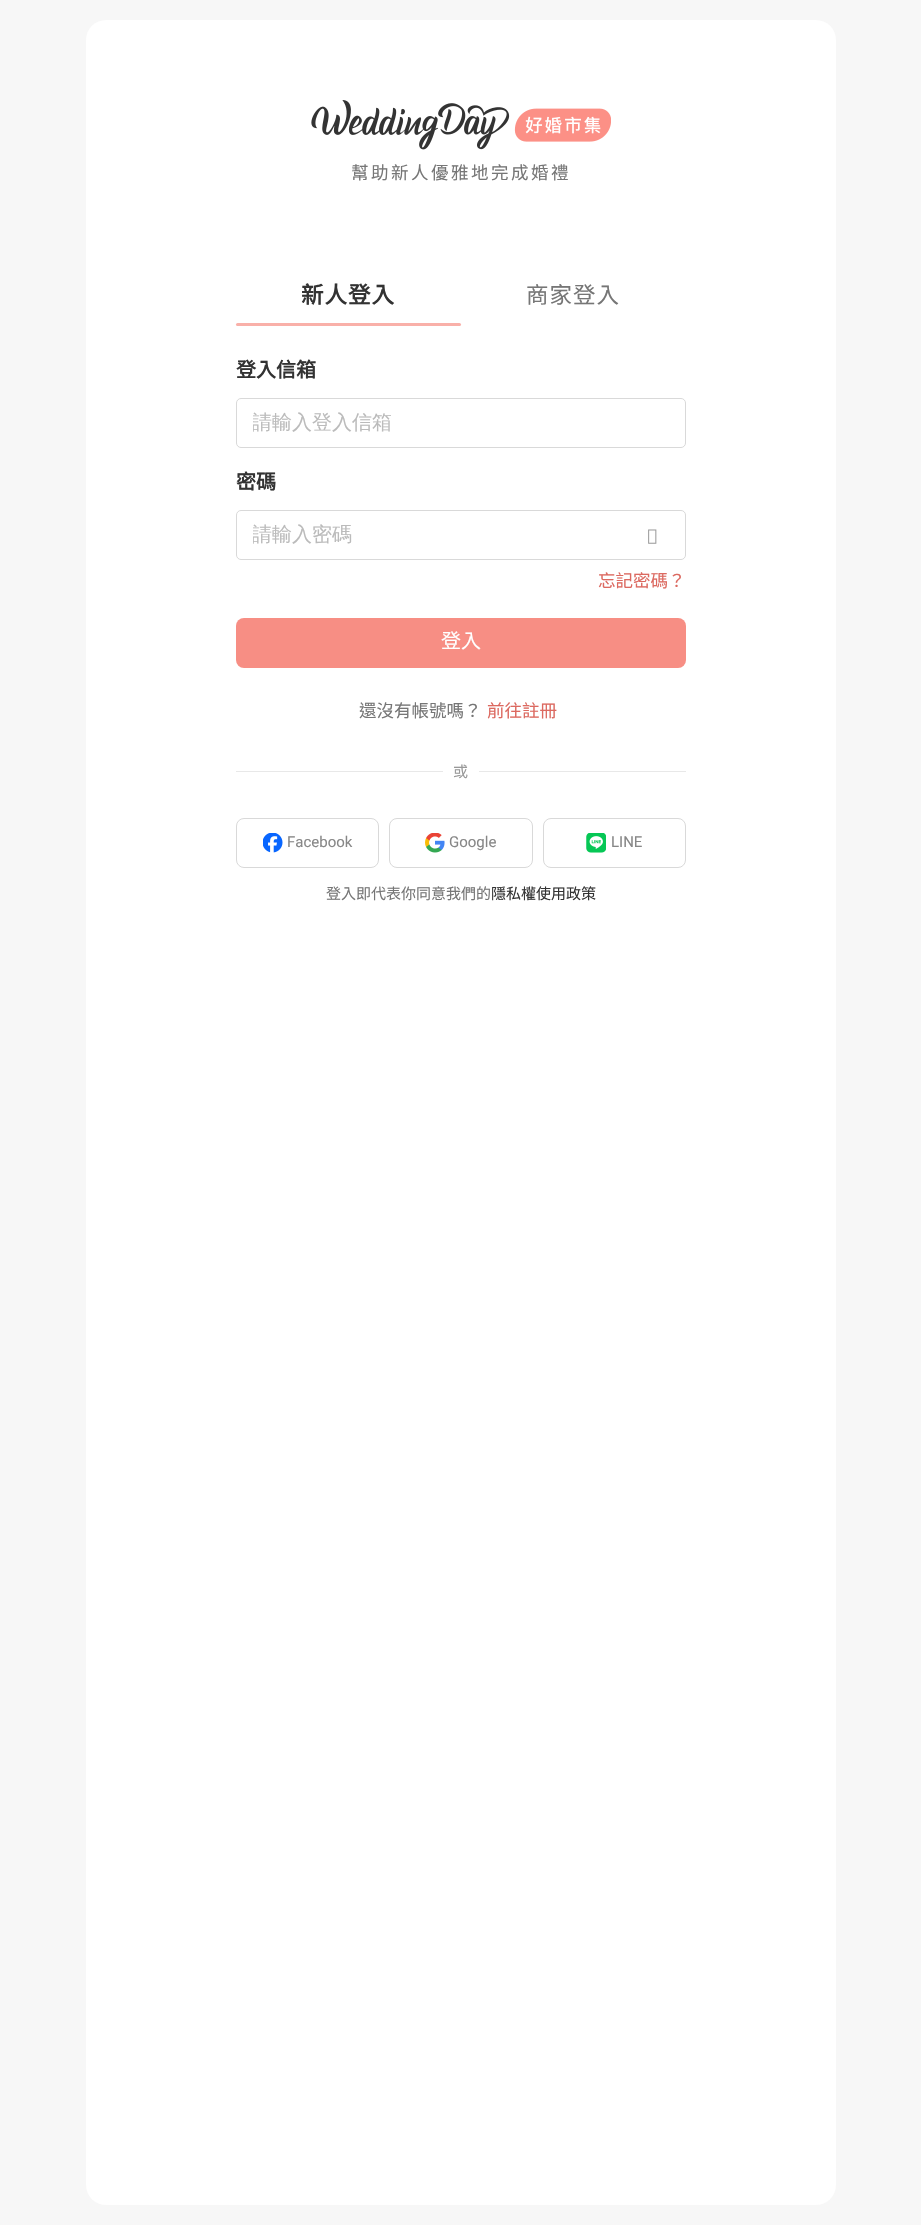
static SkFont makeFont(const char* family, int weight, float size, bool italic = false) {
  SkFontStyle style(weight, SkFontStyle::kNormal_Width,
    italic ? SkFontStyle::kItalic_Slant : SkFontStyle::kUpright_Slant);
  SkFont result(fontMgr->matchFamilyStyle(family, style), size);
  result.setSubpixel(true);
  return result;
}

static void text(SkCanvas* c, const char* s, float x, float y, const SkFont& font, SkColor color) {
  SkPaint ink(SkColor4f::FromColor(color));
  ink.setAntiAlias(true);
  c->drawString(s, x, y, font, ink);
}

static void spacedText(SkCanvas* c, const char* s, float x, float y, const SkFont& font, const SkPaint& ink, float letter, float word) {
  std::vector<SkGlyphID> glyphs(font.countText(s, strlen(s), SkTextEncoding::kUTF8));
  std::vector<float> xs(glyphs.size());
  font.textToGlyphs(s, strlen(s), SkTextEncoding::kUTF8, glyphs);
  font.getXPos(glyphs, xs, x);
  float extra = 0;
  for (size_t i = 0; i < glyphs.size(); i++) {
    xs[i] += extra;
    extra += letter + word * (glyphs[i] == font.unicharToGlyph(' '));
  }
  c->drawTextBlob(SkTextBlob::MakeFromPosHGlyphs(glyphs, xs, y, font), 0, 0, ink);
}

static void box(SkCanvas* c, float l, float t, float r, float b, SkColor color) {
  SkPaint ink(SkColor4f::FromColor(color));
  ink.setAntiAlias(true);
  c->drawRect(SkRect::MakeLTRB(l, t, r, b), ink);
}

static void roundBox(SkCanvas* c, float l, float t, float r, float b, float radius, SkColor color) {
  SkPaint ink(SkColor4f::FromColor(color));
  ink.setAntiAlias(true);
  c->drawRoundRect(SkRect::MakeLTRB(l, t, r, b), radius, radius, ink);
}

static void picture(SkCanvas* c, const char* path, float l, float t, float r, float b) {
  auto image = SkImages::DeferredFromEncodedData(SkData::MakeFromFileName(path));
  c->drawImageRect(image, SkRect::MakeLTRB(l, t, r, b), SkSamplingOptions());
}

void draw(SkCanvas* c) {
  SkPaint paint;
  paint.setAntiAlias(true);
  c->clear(0xfff7f7f7);
  roundBox(c, 86, 20, 836, 2205, 20, 0xffffffff);
  picture(c, "img_01.png", 311, 100, 611, 150);
  SkFont face1 = makeFont("Noto Sans CJK TC", 400, 17.5f);
  paint.setColor(0xff767676);
  spacedText(c, "幫助新人優雅地完成婚禮", 351, 179, face1, paint, 2.5f, 0);
  SkFont face2 = makeFont("Noto Sans CJK TC", 700, 22.5f);
  paint.setColor(0xff333333);
  spacedText(c, "新人登入", 301, 303, face2, paint, 1, 0);
  SkFont face3 = makeFont("Noto Sans CJK TC", 400, 22.5f);
  paint.setColor(0xff767676);
  spacedText(c, "商家登入", 526, 303, face3, paint, 1, 0);
  roundBox(c, 236, 323, 461, 326, 1.5f, 0xfff9b0a9);
  SkFont face4 = makeFont("Noto Sans CJK TC", 700, 20);
  text(c, "登入信箱", 236, 377, face4, 0xff333333);
  paint.setStyle(SkPaint::kStroke_Style);
  paint.setStrokeWidth(1);
  paint.setColor(0xffd9d9d9);
  c->drawRoundRect(SkRect::MakeLTRB(236.5f, 398.5f, 685.5f, 447.5f), 4.5f, 4.5f, paint);
  c->save();
  c->clipRect(SkRect::MakeLTRB(253, 410, 670, 436));
  SkFont face5 = makeFont("WenQuanYi Zen Hei", 500, 20);
  text(c, "請輸入登入信箱", 252, 429, face5, 0xffbbbbbb);
  c->restore();
  text(c, "密碼", 236, 489, face4, 0xff333333);
  c->drawRoundRect(SkRect::MakeLTRB(236.5f, 510.5f, 685.5f, 559.5f), 4.5f, 4.5f, paint);
  c->save();
  c->clipRect(SkRect::MakeLTRB(253, 523, 670, 549));
  text(c, "請輸入密碼", 252, 541, face5, 0xffbbbbbb);
  c->restore();
  picture(c, "img_02.png", 648, 529, 657, 544);
  text(c, "忘記密碼？", 598, 587, face1, 0xffdc6960);
  roundBox(c, 236, 618, 686, 668, 8, 0xfff78e84);
  SkFont face6 = makeFont("Noto Sans CJK TC", 400, 20);
  text(c, "登入", 441, 648, face6, 0xffffffff);
  text(c, "還沒有帳號嗎？", 359, 717, face1, 0xff767676);
  text(c, "前往註冊", 487, 717, face1, 0xffdc6960);
  box(c, 236, 771, 686, 772, 0xffe8e8e8);
  box(c, 443, 771, 479, 772, 0xffffffff);
  SkFont face7 = makeFont("Noto Sans CJK TC", 400, 15);
  text(c, "或", 453, 777, face7, 0xff999999);
  c->drawRoundRect(SkRect::MakeLTRB(236.5f, 818.5f, 378.5f, 867.5f), 7.5f, 7.5f, paint);
  picture(c, "img_03.png", 263, 833, 283, 853);
  SkFont face8 = makeFont("Roboto", 400, 15);
  text(c, "Facebook", 287, 847, face8, 0xff878787);
  c->drawRoundRect(SkRect::MakeLTRB(389.5f, 818.5f, 532.5f, 867.5f), 7.5f, 7.5f, paint);
  picture(c, "img_04.png", 425, 833, 445, 853);
  text(c, "Google", 449, 847, face8, 0xff878787);
  c->drawRoundRect(SkRect::MakeLTRB(543.5f, 818.5f, 685.5f, 867.5f), 7.5f, 7.5f, paint);
  picture(c, "img_05.png", 586, 833, 606, 853);
  text(c, "LINE", 611, 847, face8, 0xff878787);
  text(c, "登入即代表你同意我們的", 326, 899, face7, 0xff767676);
  text(c, "隱私權使用政策", 491, 899, face7, 0xff333333);
}
